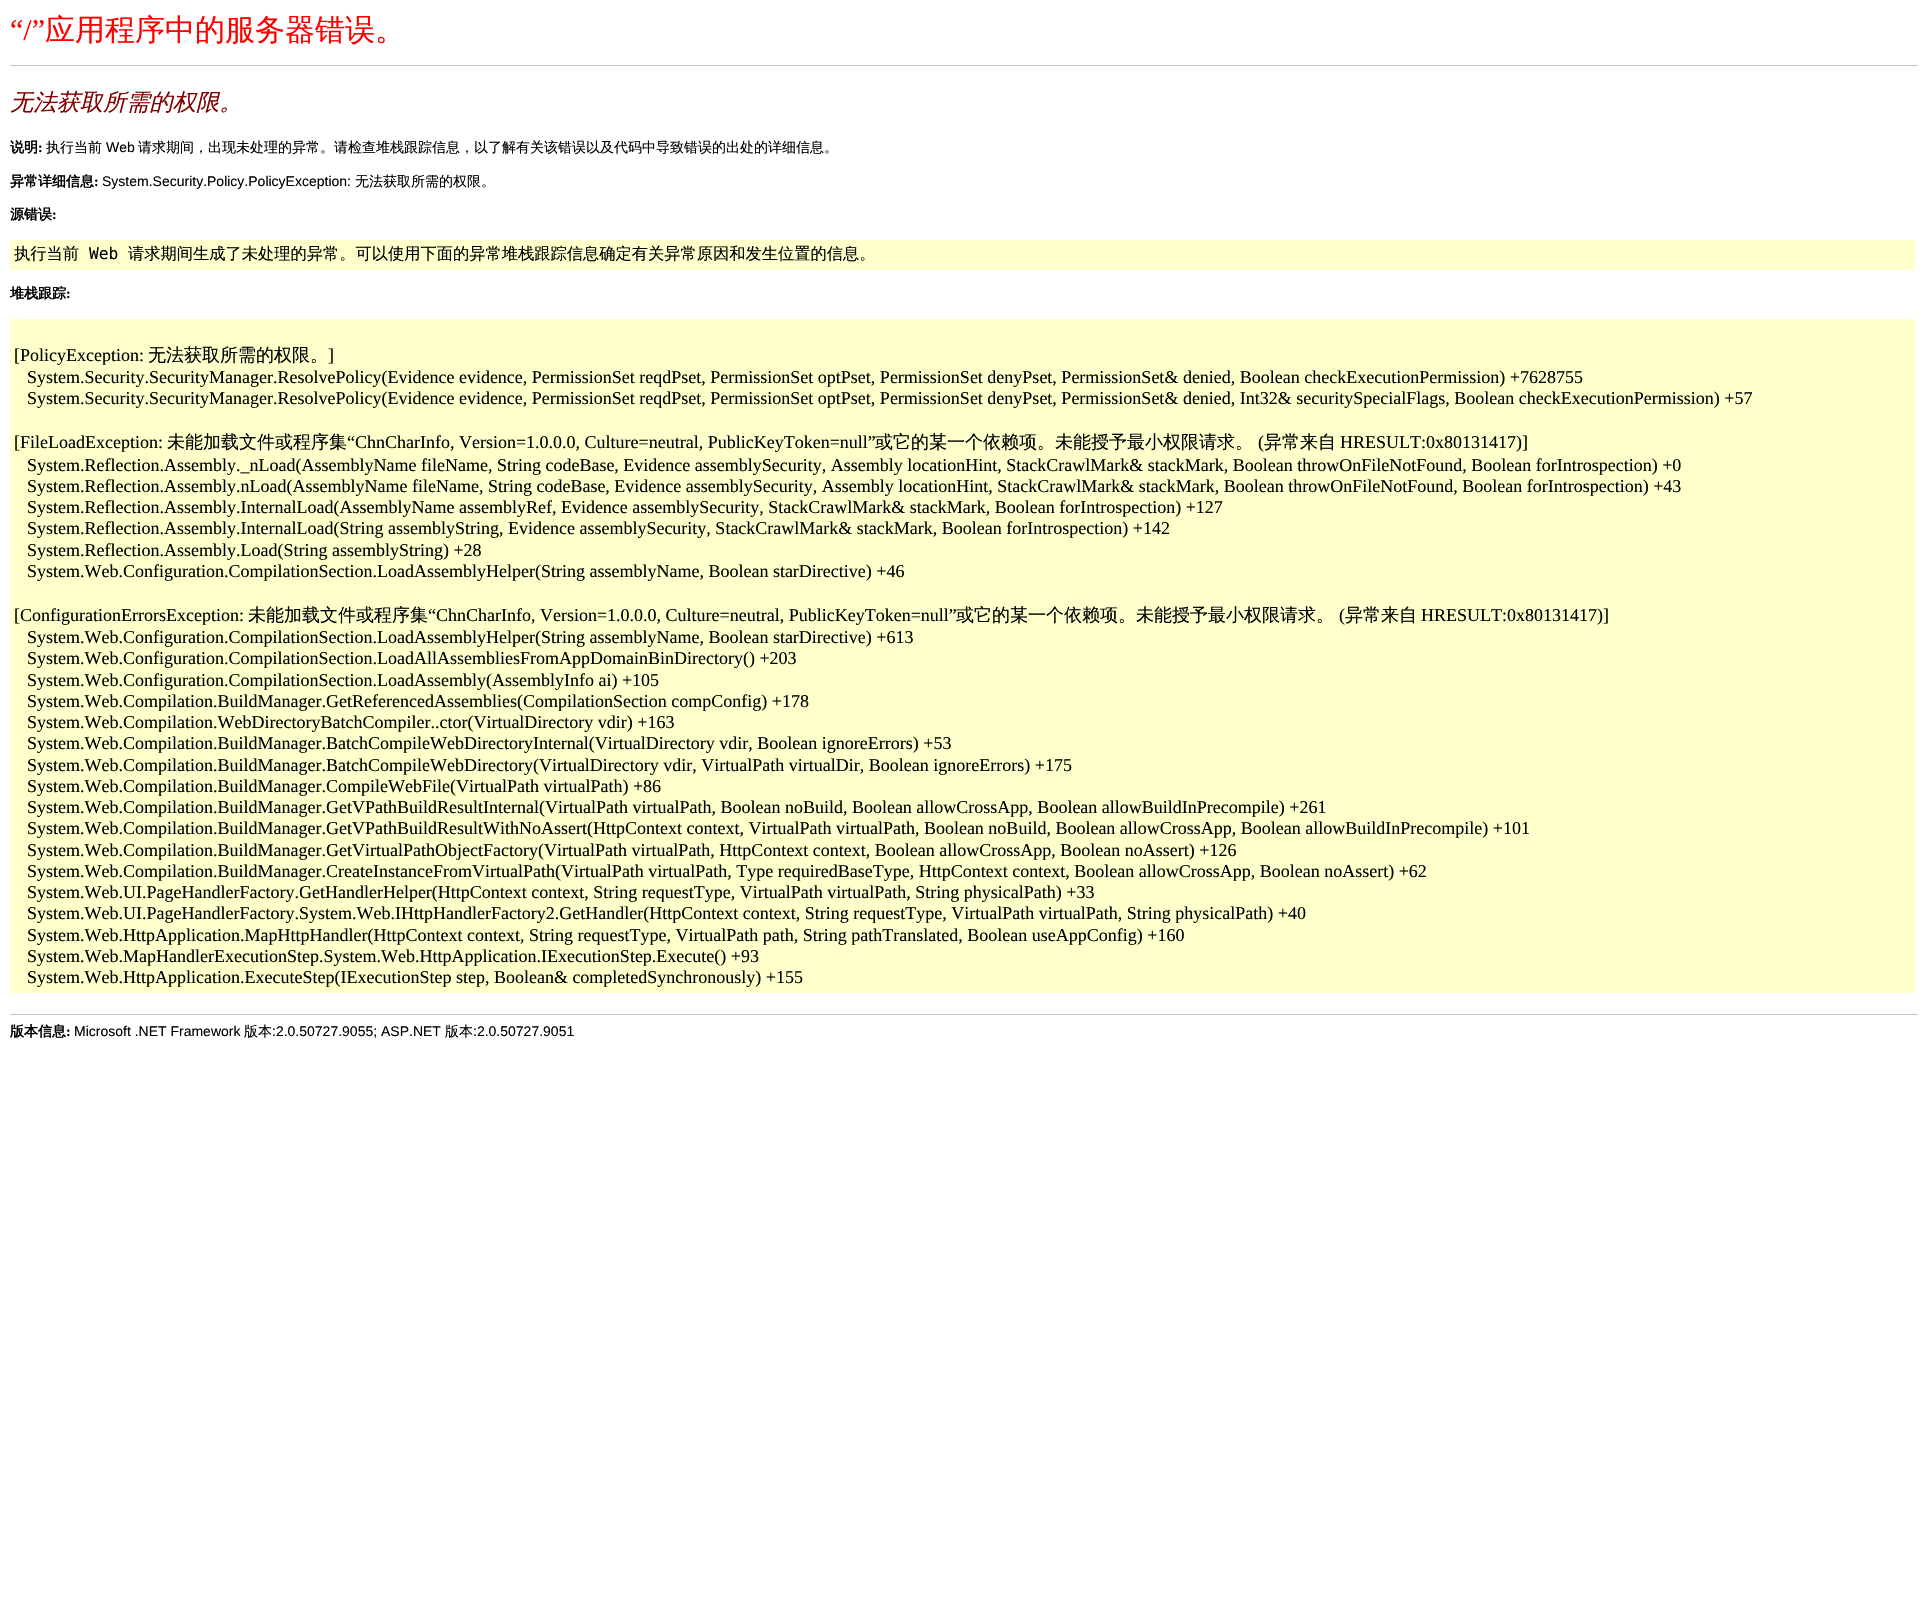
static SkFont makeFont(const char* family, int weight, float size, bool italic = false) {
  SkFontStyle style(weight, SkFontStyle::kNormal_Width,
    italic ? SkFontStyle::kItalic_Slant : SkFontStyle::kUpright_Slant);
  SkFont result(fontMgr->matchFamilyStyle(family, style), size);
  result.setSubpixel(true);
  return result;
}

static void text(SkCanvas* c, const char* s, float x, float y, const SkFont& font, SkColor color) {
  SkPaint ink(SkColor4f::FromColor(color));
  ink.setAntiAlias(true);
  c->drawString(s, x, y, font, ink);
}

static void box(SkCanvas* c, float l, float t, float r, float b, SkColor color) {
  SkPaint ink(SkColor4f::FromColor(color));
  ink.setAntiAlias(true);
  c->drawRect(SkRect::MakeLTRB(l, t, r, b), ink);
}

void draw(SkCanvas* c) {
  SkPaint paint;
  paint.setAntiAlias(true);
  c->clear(0xffffffff);
  SkFont face1 = makeFont("Liberation Serif", 400, 30);
  text(c, "“/”", 10, 40, face1, 0xffff0000);
  SkFont face2 = makeFont("WenQuanYi Zen Hei", 500, 30);
  text(c, "应用程序中的服务器错误。", 45, 40, face2, 0xffff0000);
  box(c, 10, 65, 1918, 66, 0xffc0c0c0);
  SkFont face3 = makeFont("WenQuanYi Zen Hei", 500, 23.25f, true);
  text(c, "无法获取所需的权限。", 10, 110, face3, 0xff800000);
  SkFont face4 = makeFont("WenQuanYi Zen Hei", 700, 14);
  text(c, "说明", 10, 152, face4, 0xff000000);
  SkFont face5 = makeFont("Liberation Serif", 700, 14);
  text(c, ":", 38, 152, face5, 0xff000000);
  SkFont face6 = makeFont("WenQuanYi Zen Hei", 500, 14);
  text(c, "执行当前", 46, 152, face6, 0xff000000);
  SkFont face7 = makeFont("Liberation Sans", 400, 14);
  text(c, "Web", 106, 152, face7, 0xff000000);
  text(c, "请求期间，出现未处理的异常。请检查堆栈跟踪信息，以了解有关该错误以及代码中导致错误的出处的详细信息。", 138, 152, face6, 0xff000000);
  text(c, "异常详细信息", 10, 186, face4, 0xff000000);
  text(c, ":", 94, 186, face5, 0xff000000);
  text(c, "System.Security.Policy.PolicyException:", 102, 186, face7, 0xff000000);
  text(c, "无法获取所需的权限。", 355, 186, face6, 0xff000000);
  text(c, "源错误", 10, 219, face4, 0xff000000);
  text(c, ":", 52, 219, face5, 0xff000000);
  box(c, 10, 240, 1915, 270, 0xffffffcc);
  SkFont face8 = makeFont("WenQuanYi Zen Hei", 500, 16.25f);
  text(c, "执行当前", 14, 259, face8, 0xff000000);
  SkFont face9 = makeFont("DejaVu Sans Mono", 400, 16.25f);
  text(c, "Web", 89, 259, face9, 0xff000000);
  text(c, "请求期间生成了未处理的异常。可以使用下面的异常堆栈跟踪信息确定有关异常原因和发生位置的信息。", 128, 259, face8, 0xff000000);
  text(c, "堆栈跟踪", 10, 298, face4, 0xff000000);
  text(c, ":", 66, 298, face5, 0xff000000);
  box(c, 10, 319, 1915, 993, 0xffffffcc);
  SkFont face10 = makeFont("Liberation Serif", 400, 18);
  text(c, "[PolicyException:", 14, 361, face10, 0xff000000);
  SkFont face11 = makeFont("WenQuanYi Zen Hei", 500, 18);
  text(c, "无法获取所需的权限。", 148, 361, face11, 0xff000000);
  text(c, "]", 328, 361, face10, 0xff000000);
  text(c, "System.Security.SecurityManager.ResolvePolicy(Evidence evidence, PermissionSet reqdPset, PermissionSet optPset, PermissionSet denyPset, PermissionSet& denied, Boolean checkExecutionPermission) +7628755", 27, 383, face10, 0xff000000);
  text(c, "System.Security.SecurityManager.ResolvePolicy(Evidence evidence, PermissionSet reqdPset, PermissionSet optPset, PermissionSet denyPset, PermissionSet& denied, Int32& securitySpecialFlags, Boolean checkExecutionPermission) +57", 27, 404, face10, 0xff000000);
  text(c, "[FileLoadException:", 14, 448, face10, 0xff000000);
  text(c, "未能加载文件或程序集", 167, 448, face11, 0xff000000);
  text(c, "“ChnCharInfo, Version=1.0.0.0, Culture=neutral, PublicKeyToken=null”", 347, 448, face10, 0xff000000);
  text(c, "或它的某一个依赖项。未能授予最小权限请求。", 875, 448, face11, 0xff000000);
  text(c, "(", 1258, 448, face10, 0xff000000);
  text(c, "异常来自", 1264, 448, face11, 0xff000000);
  text(c, "HRESULT:0x80131417)]", 1340, 448, face10, 0xff000000);
  text(c, "System.Reflection.Assembly._nLoad(AssemblyName fileName, String codeBase, Evidence assemblySecurity, Assembly locationHint, StackCrawlMark& stackMark, Boolean throwOnFileNotFound, Boolean forIntrospection) +0", 27, 471, face10, 0xff000000);
  text(c, "System.Reflection.Assembly.nLoad(AssemblyName fileName, String codeBase, Evidence assemblySecurity, Assembly locationHint, StackCrawlMark& stackMark, Boolean throwOnFileNotFound, Boolean forIntrospection) +43", 27, 492, face10, 0xff000000);
  text(c, "System.Reflection.Assembly.InternalLoad(AssemblyName assemblyRef, Evidence assemblySecurity, StackCrawlMark& stackMark, Boolean forIntrospection) +127", 27, 513, face10, 0xff000000);
  text(c, "System.Reflection.Assembly.InternalLoad(String assemblyString, Evidence assemblySecurity, StackCrawlMark& stackMark, Boolean forIntrospection) +142", 27, 534, face10, 0xff000000);
  text(c, "System.Reflection.Assembly.Load(String assemblyString) +28", 27, 556, face10, 0xff000000);
  text(c, "System.Web.Configuration.CompilationSection.LoadAssemblyHelper(String assemblyName, Boolean starDirective) +46", 27, 577, face10, 0xff000000);
  text(c, "[ConfigurationErrorsException:", 14, 621, face10, 0xff000000);
  text(c, "未能加载文件或程序集", 248, 621, face11, 0xff000000);
  text(c, "“ChnCharInfo, Version=1.0.0.0, Culture=neutral, PublicKeyToken=null”", 428, 621, face10, 0xff000000);
  text(c, "或它的某一个依赖项。未能授予最小权限请求。", 956, 621, face11, 0xff000000);
  text(c, "(", 1339, 621, face10, 0xff000000);
  text(c, "异常来自", 1345, 621, face11, 0xff000000);
  text(c, "HRESULT:0x80131417)]", 1421, 621, face10, 0xff000000);
  text(c, "System.Web.Configuration.CompilationSection.LoadAssemblyHelper(String assemblyName, Boolean starDirective) +613", 27, 643, face10, 0xff000000);
  text(c, "System.Web.Configuration.CompilationSection.LoadAllAssembliesFromAppDomainBinDirectory() +203", 27, 664, face10, 0xff000000);
  text(c, "System.Web.Configuration.CompilationSection.LoadAssembly(AssemblyInfo ai) +105", 27, 686, face10, 0xff000000);
  text(c, "System.Web.Compilation.BuildManager.GetReferencedAssemblies(CompilationSection compConfig) +178", 27, 707, face10, 0xff000000);
  text(c, "System.Web.Compilation.WebDirectoryBatchCompiler..ctor(VirtualDirectory vdir) +163", 27, 728, face10, 0xff000000);
  text(c, "System.Web.Compilation.BuildManager.BatchCompileWebDirectoryInternal(VirtualDirectory vdir, Boolean ignoreErrors) +53", 27, 749, face10, 0xff000000);
  text(c, "System.Web.Compilation.BuildManager.BatchCompileWebDirectory(VirtualDirectory vdir, VirtualPath virtualDir, Boolean ignoreErrors) +175", 27, 771, face10, 0xff000000);
  text(c, "System.Web.Compilation.BuildManager.CompileWebFile(VirtualPath virtualPath) +86", 27, 792, face10, 0xff000000);
  text(c, "System.Web.Compilation.BuildManager.GetVPathBuildResultInternal(VirtualPath virtualPath, Boolean noBuild, Boolean allowCrossApp, Boolean allowBuildInPrecompile) +261", 27, 813, face10, 0xff000000);
  text(c, "System.Web.Compilation.BuildManager.GetVPathBuildResultWithNoAssert(HttpContext context, VirtualPath virtualPath, Boolean noBuild, Boolean allowCrossApp, Boolean allowBuildInPrecompile) +101", 27, 834, face10, 0xff000000);
  text(c, "System.Web.Compilation.BuildManager.GetVirtualPathObjectFactory(VirtualPath virtualPath, HttpContext context, Boolean allowCrossApp, Boolean noAssert) +126", 27, 856, face10, 0xff000000);
  text(c, "System.Web.Compilation.BuildManager.CreateInstanceFromVirtualPath(VirtualPath virtualPath, Type requiredBaseType, HttpContext context, Boolean allowCrossApp, Boolean noAssert) +62", 27, 877, face10, 0xff000000);
  text(c, "System.Web.UI.PageHandlerFactory.GetHandlerHelper(HttpContext context, String requestType, VirtualPath virtualPath, String physicalPath) +33", 27, 898, face10, 0xff000000);
  text(c, "System.Web.UI.PageHandlerFactory.System.Web.IHttpHandlerFactory2.GetHandler(HttpContext context, String requestType, VirtualPath virtualPath, String physicalPath) +40", 27, 919, face10, 0xff000000);
  text(c, "System.Web.HttpApplication.MapHttpHandler(HttpContext context, String requestType, VirtualPath path, String pathTranslated, Boolean useAppConfig) +160", 27, 941, face10, 0xff000000);
  text(c, "System.Web.MapHandlerExecutionStep.System.Web.HttpApplication.IExecutionStep.Execute() +93", 27, 962, face10, 0xff000000);
  text(c, "System.Web.HttpApplication.ExecuteStep(IExecutionStep step, Boolean& completedSynchronously) +155", 27, 983, face10, 0xff000000);
  box(c, 10, 1014, 1918, 1015, 0xffc0c0c0);
  text(c, "版本信息", 10, 1036, face4, 0xff000000);
  text(c, ":", 66, 1036, face5, 0xff000000);
  text(c, "Microsoft .NET Framework", 74, 1036, face7, 0xff000000);
  text(c, "版本", 244, 1036, face6, 0xff000000);
  text(c, ":2.0.50727.9055; ASP.NET", 272, 1036, face7, 0xff000000);
  text(c, "版本", 445, 1036, face6, 0xff000000);
  text(c, ":2.0.50727.9051", 473, 1036, face7, 0xff000000);
}
